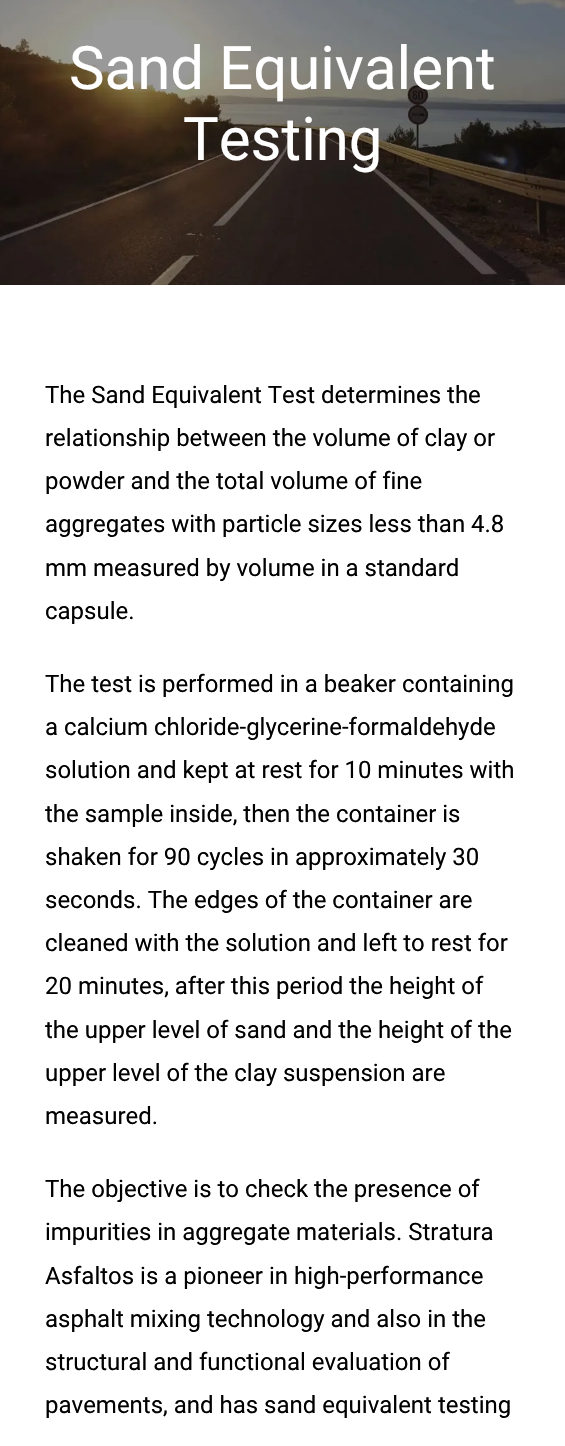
static SkFont makeFont(const char* family, int weight, float size, bool italic = false) {
  SkFontStyle style(weight, SkFontStyle::kNormal_Width,
    italic ? SkFontStyle::kItalic_Slant : SkFontStyle::kUpright_Slant);
  SkFont result(fontMgr->matchFamilyStyle(family, style), size);
  result.setSubpixel(true);
  return result;
}

static void text(SkCanvas* c, const char* s, float x, float y, const SkFont& font, SkColor color) {
  SkPaint ink(SkColor4f::FromColor(color));
  ink.setAntiAlias(true);
  c->drawString(s, x, y, font, ink);
}

static void picture(SkCanvas* c, const char* path, float l, float t, float r, float b) {
  auto image = SkImages::DeferredFromEncodedData(SkData::MakeFromFileName(path));
  c->drawImageRect(image, SkRect::MakeLTRB(l, t, r, b), SkSamplingOptions());
}

void draw(SkCanvas* c) {
  SkPaint paint;
  paint.setAntiAlias(true);
  c->clear(0xffffffff);
  picture(c, "img_01.png", 0, 0, 565, 285);
  SkFont face1 = makeFont("Roboto", 400, 60);
  text(c, "Sand Equivalent", 69, 89, face1, 0xffffffff);
  text(c, "Testing", 183, 160, face1, 0xffffffff);
  SkFont face2 = makeFont("Roboto", 400, 24);
  text(c, "The Sand Equivalent Test determines the", 45, 403, face2, 0xff000000);
  text(c, "relationship between the volume of clay or", 45, 446, face2, 0xff000000);
  text(c, "powder and the total volume of fine", 45, 489, face2, 0xff000000);
  text(c, "aggregates with particle sizes less than 4.8", 45, 532, face2, 0xff000000);
  text(c, "mm measured by volume in a standard", 45, 576, face2, 0xff000000);
  text(c, "capsule.", 45, 619, face2, 0xff000000);
  text(c, "The test is performed in a beaker containing", 45, 692, face2, 0xff000000);
  text(c, "a calcium chloride-glycerine-formaldehyde", 45, 735, face2, 0xff000000);
  text(c, "solution and kept at rest for 10 minutes with", 45, 778, face2, 0xff000000);
  text(c, "the sample inside, then the container is", 45, 822, face2, 0xff000000);
  text(c, "shaken for 90 cycles in approximately 30", 45, 865, face2, 0xff000000);
  text(c, "seconds. The edges of the container are", 45, 908, face2, 0xff000000);
  text(c, "cleaned with the solution and left to rest for", 45, 951, face2, 0xff000000);
  text(c, "20 minutes, after this period the height of", 45, 994, face2, 0xff000000);
  text(c, "the upper level of sand and the height of the", 45, 1038, face2, 0xff000000);
  text(c, "upper level of the clay suspension are", 45, 1081, face2, 0xff000000);
  text(c, "measured.", 45, 1124, face2, 0xff000000);
  text(c, "The objective is to check the presence of", 45, 1197, face2, 0xff000000);
  text(c, "impurities in aggregate materials. Stratura", 45, 1240, face2, 0xff000000);
  text(c, "Asfaltos is a pioneer in high-performance", 45, 1284, face2, 0xff000000);
  text(c, "asphalt mixing technology and also in the", 45, 1327, face2, 0xff000000);
  text(c, "structural and functional evaluation of", 45, 1370, face2, 0xff000000);
  text(c, "pavements, and has sand equivalent testing", 45, 1413, face2, 0xff000000);
}
